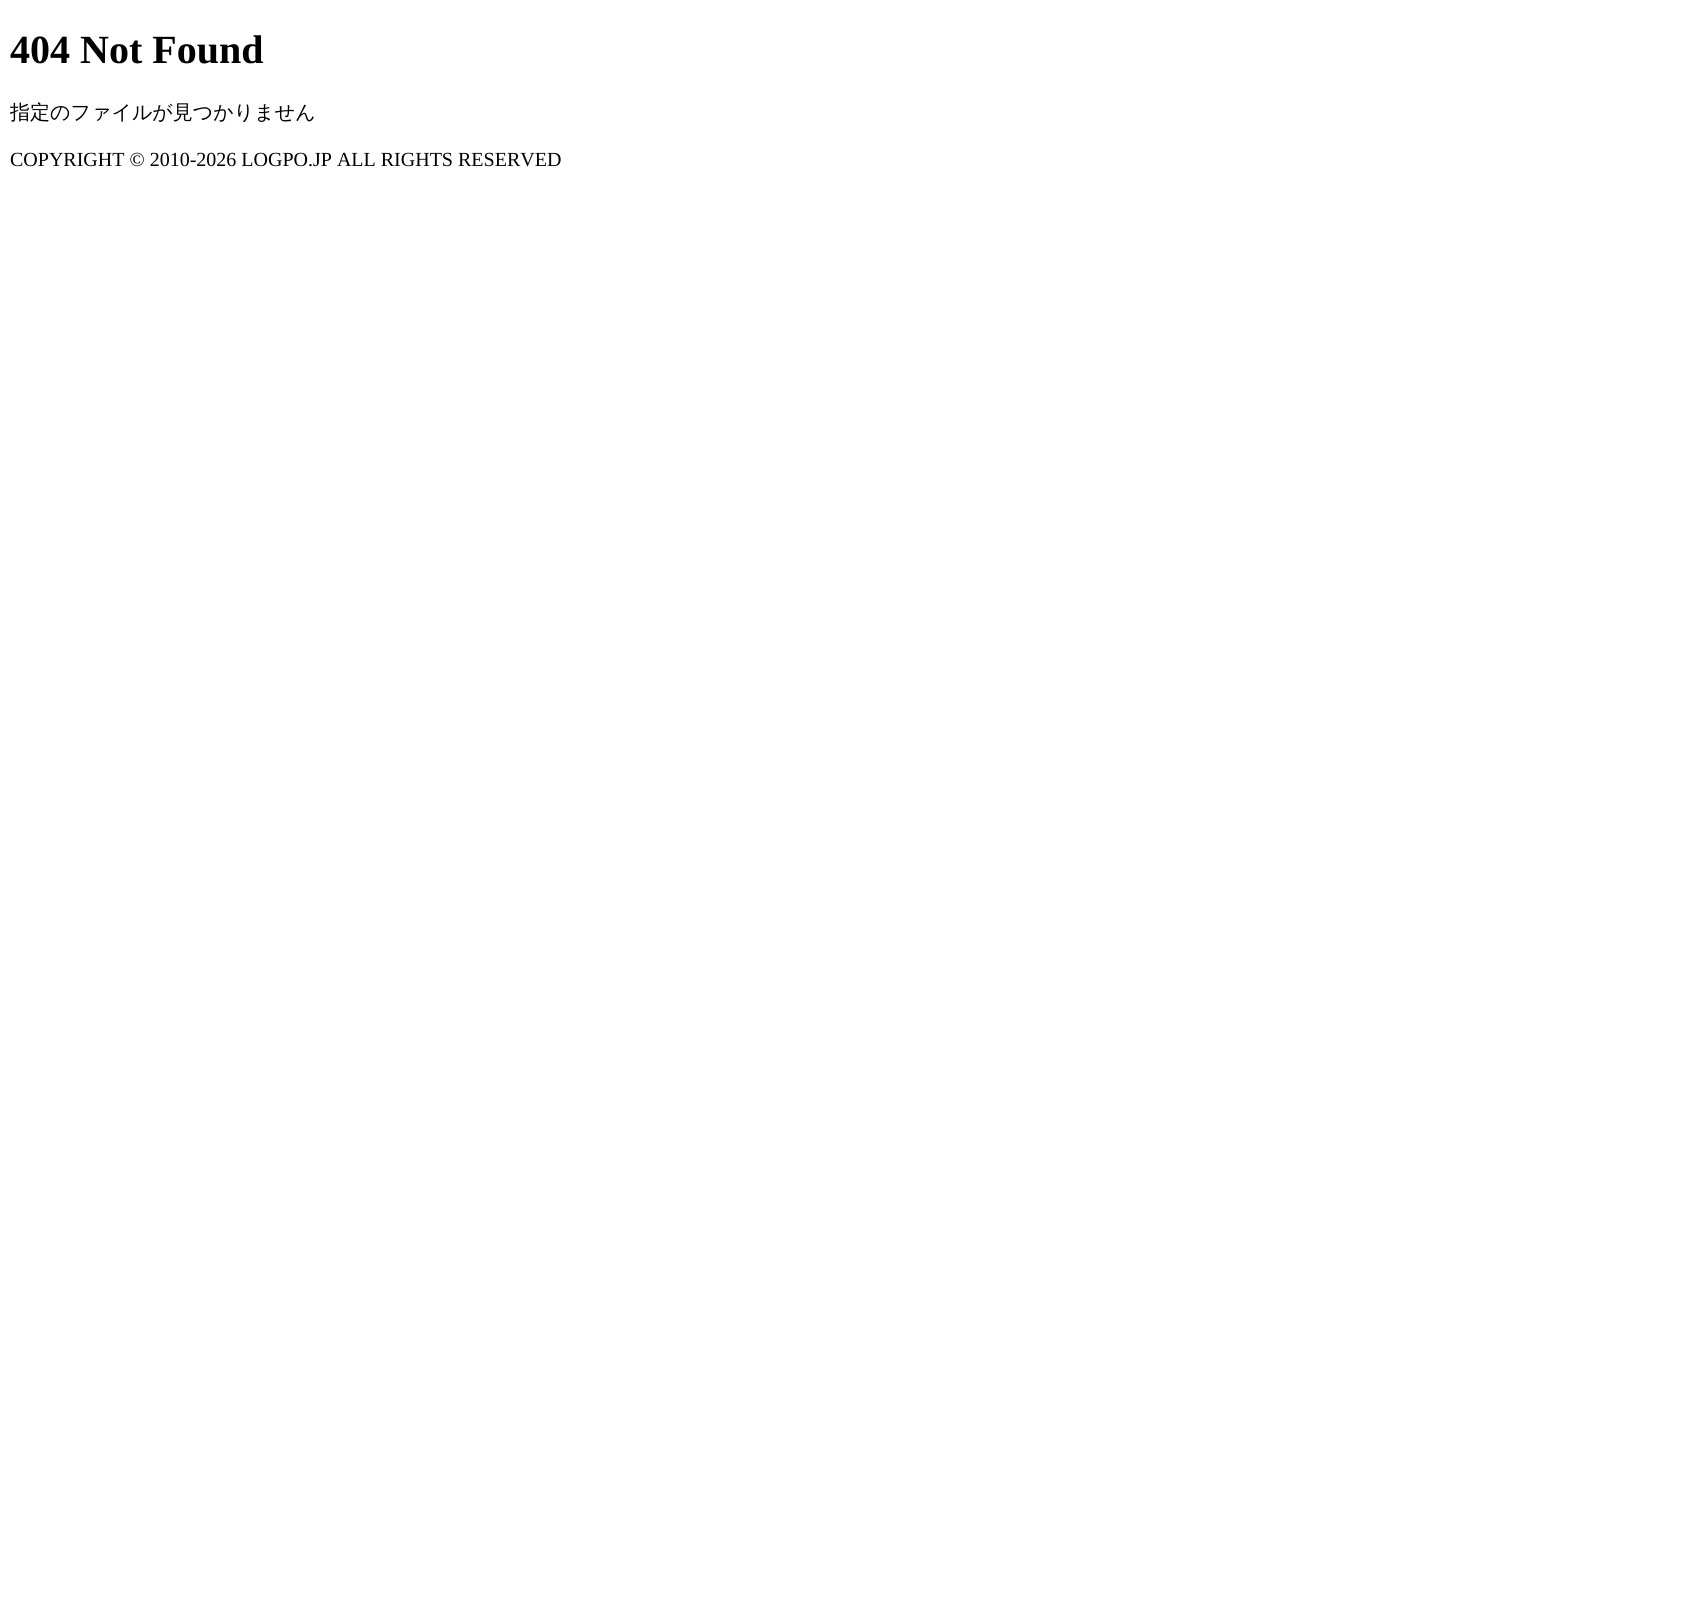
import math
import cairocffi as cairo

surface = cairo.ImageSurface(cairo.FORMAT_RGB24, 1689, 1609)
cr = cairo.Context(surface)
options = cairo.FontOptions()
options.set_hint_metrics(cairo.HINT_METRICS_OFF)
options.set_hint_style(cairo.HINT_STYLE_NONE)
cr.set_font_options(options)
cr.set_miter_limit(4)


def use_color(code):
    cr.set_source_rgb(*(v / 255 for v in bytes.fromhex(code[-6:])))


use_color("#ffffff")
cr.paint()
cr.select_font_face("Liberation Serif", cairo.FONT_SLANT_NORMAL, cairo.FONT_WEIGHT_BOLD)
cr.set_font_size(40)
use_color("#000000")
cr.move_to(10, 63)
cr.show_text("404 Not Found")
cr.select_font_face("WenQuanYi Zen Hei Medium")
cr.set_font_size(20)
cr.move_to(10, 119)
cr.show_text("指定のファイルが見つかりません")
cr.select_font_face("Liberation Serif")
cr.move_to(10, 166)
cr.show_text("COPYRIGHT © 2010-2026 LOGPO.JP ALL RIGHTS RESERVED")
surface.write_to_png("result.png")
